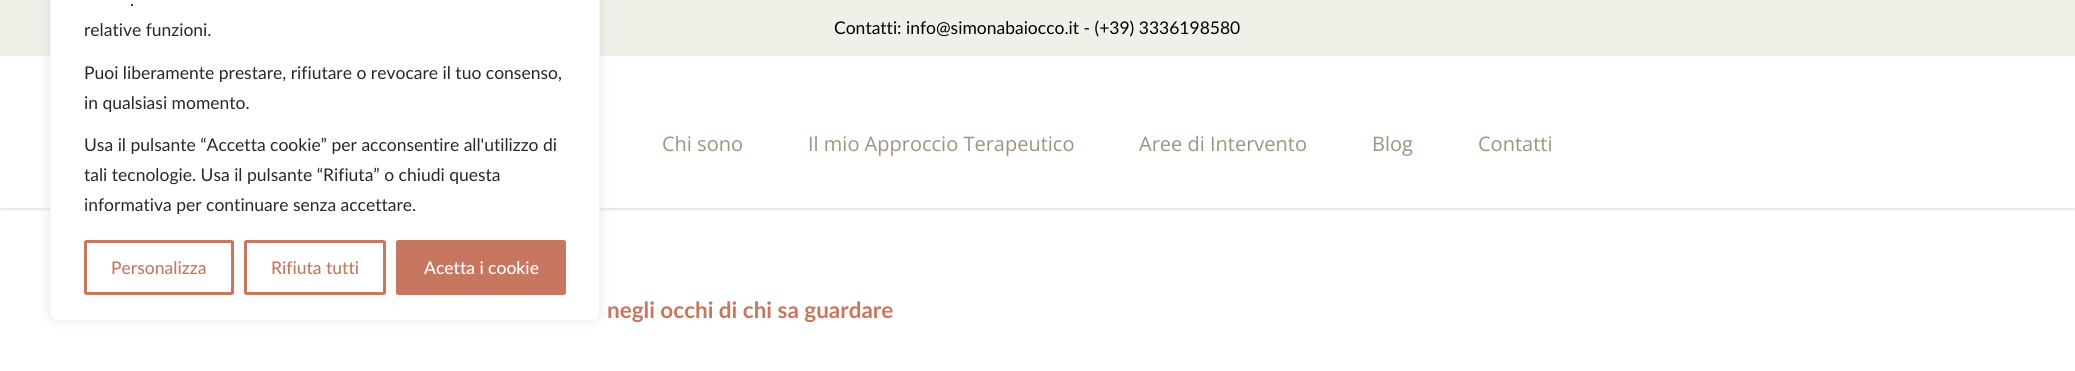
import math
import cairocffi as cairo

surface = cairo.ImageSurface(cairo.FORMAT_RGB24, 2075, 371)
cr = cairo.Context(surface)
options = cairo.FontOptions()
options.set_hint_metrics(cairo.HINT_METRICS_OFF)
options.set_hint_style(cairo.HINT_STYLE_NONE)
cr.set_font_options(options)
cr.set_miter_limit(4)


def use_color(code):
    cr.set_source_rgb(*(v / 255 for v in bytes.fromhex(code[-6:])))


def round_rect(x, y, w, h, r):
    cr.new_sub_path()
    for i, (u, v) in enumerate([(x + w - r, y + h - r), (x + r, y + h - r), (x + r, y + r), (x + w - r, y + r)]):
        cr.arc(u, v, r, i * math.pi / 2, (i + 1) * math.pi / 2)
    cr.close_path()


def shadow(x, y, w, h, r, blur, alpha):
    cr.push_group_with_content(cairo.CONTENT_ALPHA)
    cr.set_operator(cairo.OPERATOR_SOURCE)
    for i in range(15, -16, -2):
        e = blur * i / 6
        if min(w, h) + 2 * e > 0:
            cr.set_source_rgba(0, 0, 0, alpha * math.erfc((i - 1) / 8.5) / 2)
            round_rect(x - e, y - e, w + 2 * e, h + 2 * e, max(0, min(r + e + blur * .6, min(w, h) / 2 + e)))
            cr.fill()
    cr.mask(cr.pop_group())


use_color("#ededed")
cr.paint()
use_color("#f0efe8")
cr.rectangle(0, 0, 2075, 55)
cr.fill()
use_color("#ffffff")
cr.rectangle(0, 208, 2075, 163)
cr.fill()
use_color("#000000")
shadow(0, 59, 2075, 151, 0, 1, 0.1)
use_color("#ffffff")
cr.rectangle(0, 56, 2075, 152)
cr.fill()
use_color("#acabab")
shadow(50, -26, 550, 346, 8, 6, 0.3)
use_color("#ffffff")
round_rect(50.5, -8.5, 549, 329, 7.5)
cr.fill_preserve()
use_color("#f4f4f4")
cr.set_line_width(1)
cr.stroke()
cr.select_font_face("Lato")
cr.set_font_size(17.5)
use_color("#292828")
cr.move_to(130, 6)
cr.show_text(".")
cr.move_to(84, 36)
cr.show_text("relative funzioni.")
cr.move_to(84, 79)
cr.show_text("Puoi liberamente prestare, rifiutare o revocare il tuo consenso,")
cr.move_to(84, 109)
cr.show_text("in qualsiasi momento.")
cr.move_to(84, 151)
cr.show_text("Usa il pulsante “Accetta cookie” per acconsentire all'utilizzo di")
cr.move_to(84, 181)
cr.show_text("tali tecnologie. Usa il pulsante “Rifiuta” o chiudi questa")
cr.move_to(84, 211)
cr.show_text("informativa per continuare senza accettare.")
round_rect(85.5, 241.5, 147, 52, 1)
use_color("#c7775f")
cr.set_line_width(3)
cr.stroke()
cr.select_font_face("Lato Medium")
cr.move_to(111, 274)
cr.show_text("Personalizza")
round_rect(245.5, 241.5, 139, 52, 1)
cr.stroke()
cr.move_to(271, 274)
cr.show_text("Rifiuta tutti")
round_rect(397.5, 241.5, 167, 52, 1)
cr.fill_preserve()
cr.stroke()
use_color("#ffffff")
cr.move_to(424, 274)
cr.show_text("Acetta i cookie")
cr.select_font_face("Lato")
use_color("#000000")
cr.move_to(834, 34)
cr.show_text("Contatti: info@simonabaiocco.it - (+39) 3336198580")
cr.select_font_face("Open Sans")
cr.set_font_size(20)
use_color("#9e937f")
cr.move_to(662, 151)
cr.show_text("Chi sono")
cr.move_to(808, 151)
cr.show_text("Il mio Approccio Terapeutico")
cr.move_to(1139, 151)
cr.show_text("Aree di Intervento")
cr.move_to(1372, 151)
cr.show_text("Blog")
cr.move_to(1478, 151)
cr.show_text("Contatti")
cr.select_font_face("Lato", cairo.FONT_SLANT_NORMAL, cairo.FONT_WEIGHT_BOLD)
cr.set_font_size(22.5)
use_color("#c7775f")
cr.move_to(607, 318)
cr.show_text("negli occhi di chi sa guardare")
surface.write_to_png("result.png")
